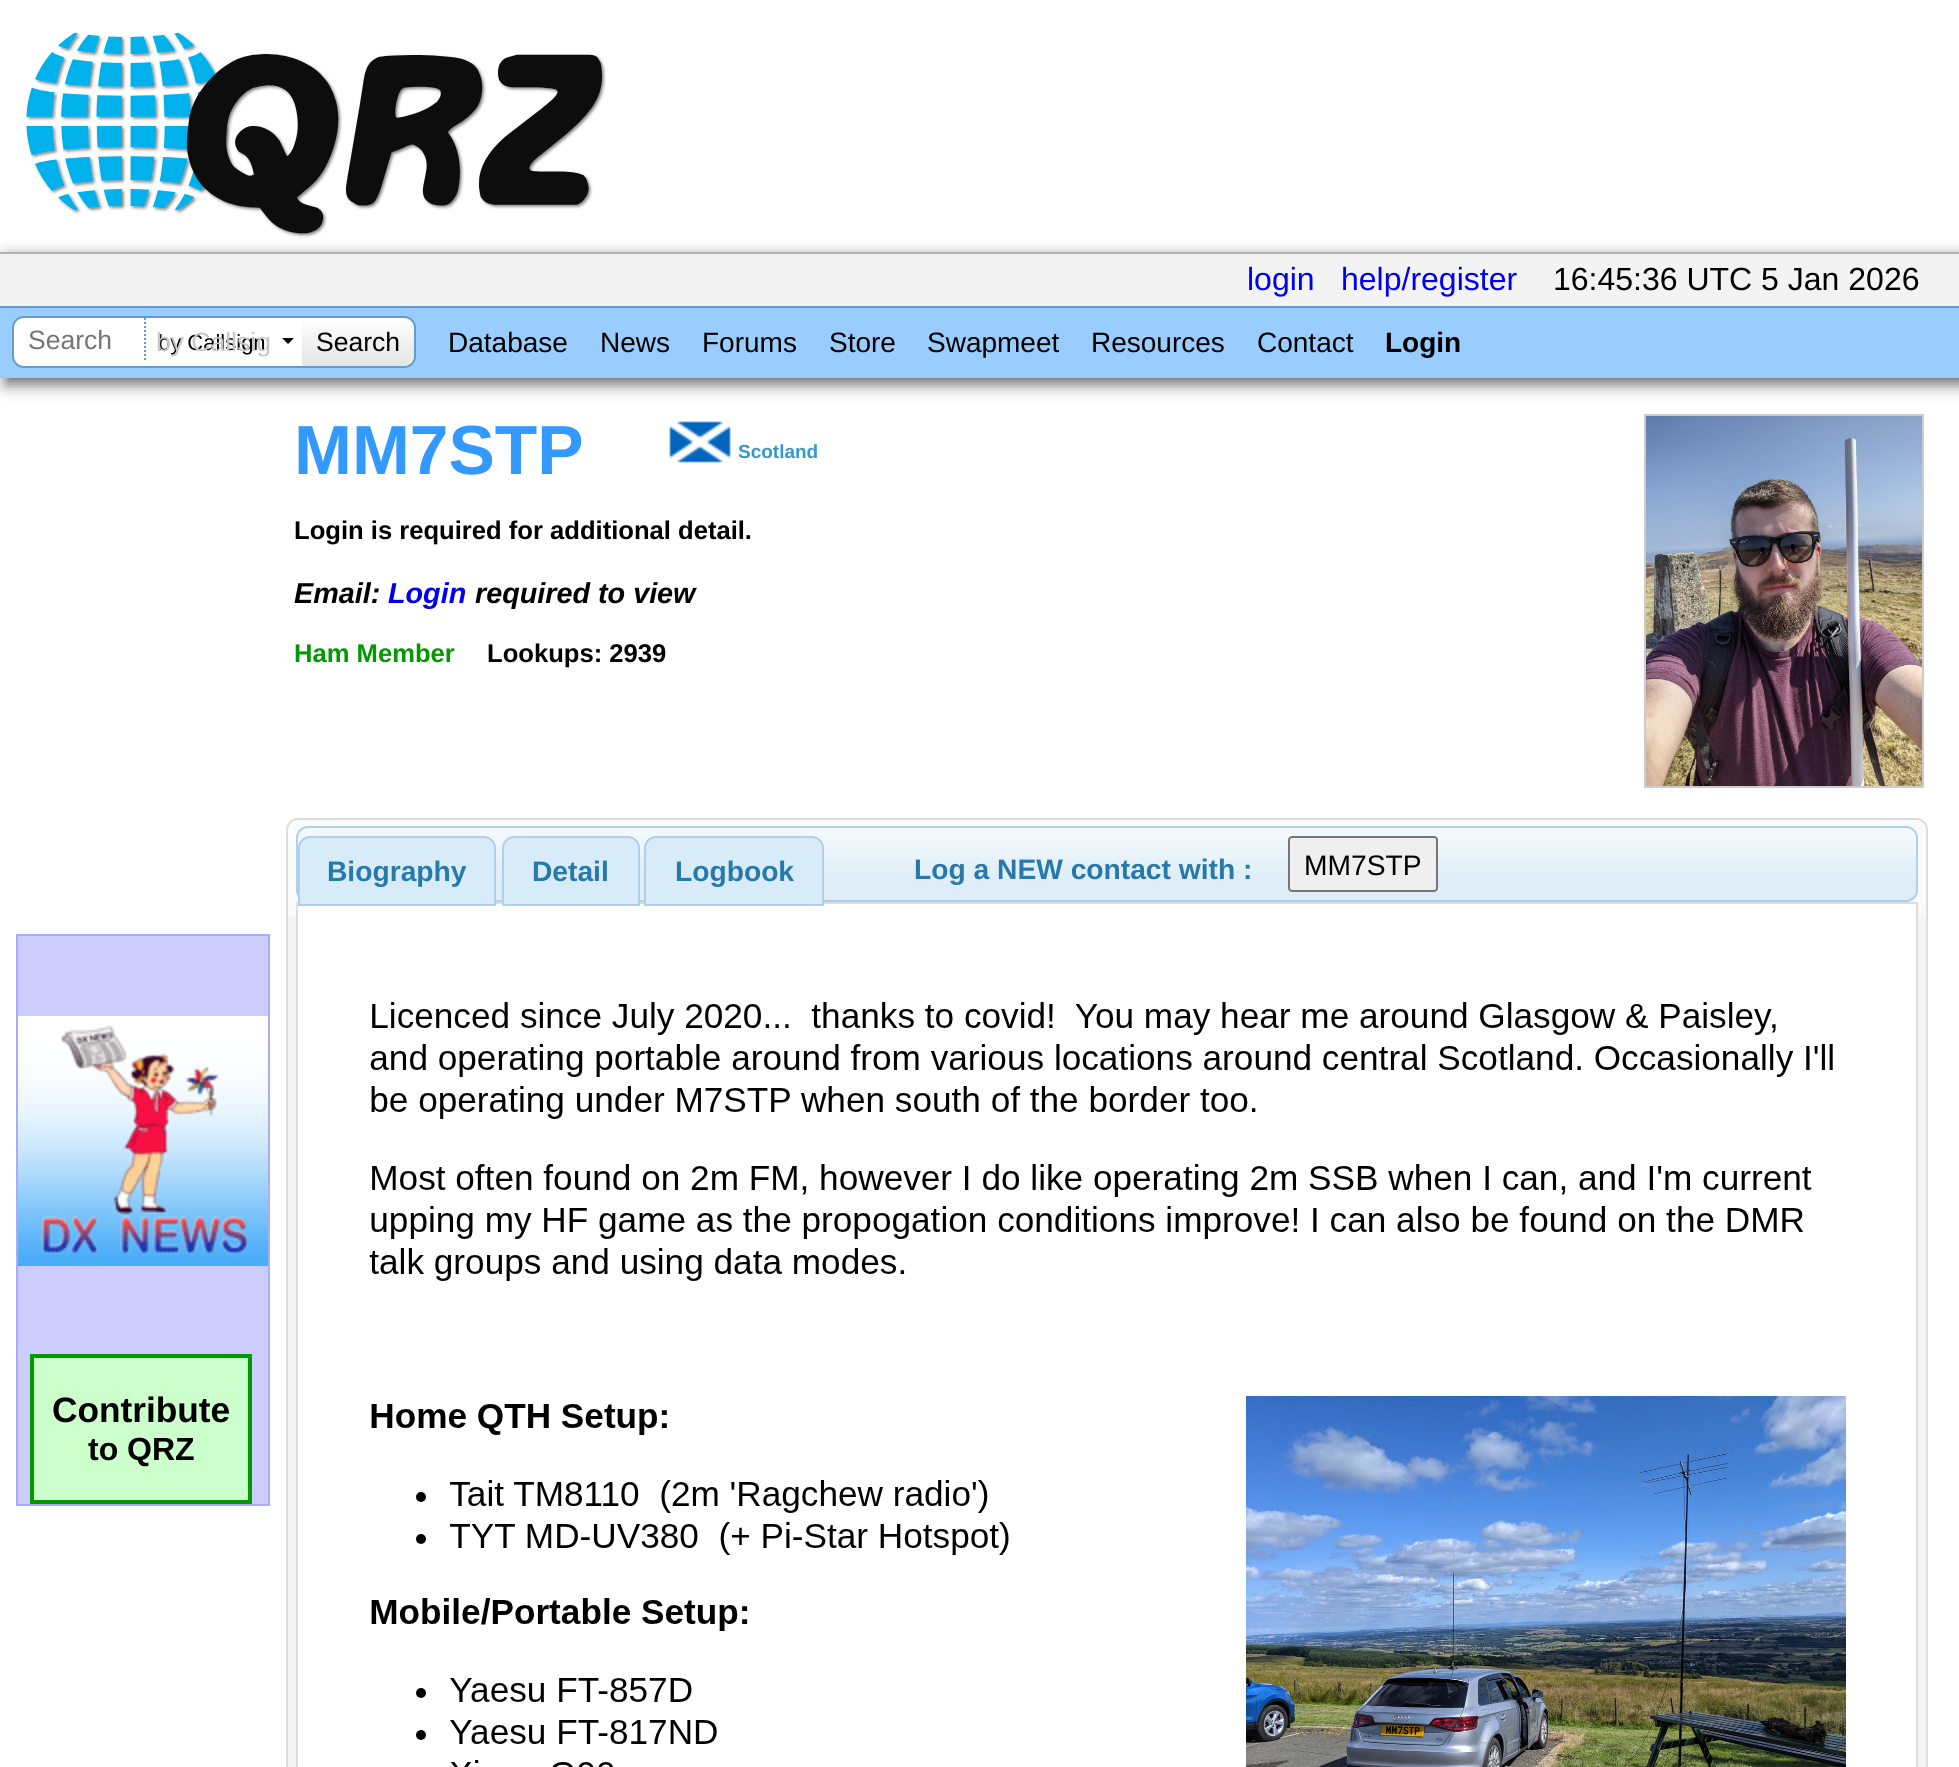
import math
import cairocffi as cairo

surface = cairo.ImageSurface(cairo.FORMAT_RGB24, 1959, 1767)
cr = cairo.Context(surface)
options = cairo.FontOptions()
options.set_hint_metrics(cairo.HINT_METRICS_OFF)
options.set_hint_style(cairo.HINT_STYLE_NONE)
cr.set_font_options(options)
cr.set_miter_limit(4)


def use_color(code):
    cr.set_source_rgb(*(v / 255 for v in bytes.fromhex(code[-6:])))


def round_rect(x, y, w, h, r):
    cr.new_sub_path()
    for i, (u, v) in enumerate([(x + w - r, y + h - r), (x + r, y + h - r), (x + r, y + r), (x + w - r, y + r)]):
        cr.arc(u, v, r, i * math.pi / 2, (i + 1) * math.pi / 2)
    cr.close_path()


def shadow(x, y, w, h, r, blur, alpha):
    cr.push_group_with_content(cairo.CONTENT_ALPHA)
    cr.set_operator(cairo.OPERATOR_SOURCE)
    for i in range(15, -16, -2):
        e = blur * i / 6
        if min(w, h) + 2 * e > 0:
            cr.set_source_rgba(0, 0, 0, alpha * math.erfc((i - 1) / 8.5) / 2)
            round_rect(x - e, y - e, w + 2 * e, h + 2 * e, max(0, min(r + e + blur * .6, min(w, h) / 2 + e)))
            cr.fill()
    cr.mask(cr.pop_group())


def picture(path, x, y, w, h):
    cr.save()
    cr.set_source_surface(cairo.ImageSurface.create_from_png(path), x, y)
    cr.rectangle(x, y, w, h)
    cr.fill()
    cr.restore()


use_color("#ffffff")
cr.paint()
use_color("#666666")
shadow(6, 258, 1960, 126, 0, 8, 1)
picture("img1.png", 26, 32, 580, 206)
use_color("#f3f3f3")
cr.rectangle(0, 254, 1959, 52)
cr.fill()
use_color("#b3b3b3")
cr.rectangle(0, 252, 1959, 2)
cr.fill()
cr.select_font_face("Liberation Sans")
cr.set_font_size(32)
use_color("#0000ee")
cr.move_to(1247, 290)
cr.show_text("login")
cr.move_to(1341, 290)
cr.show_text("help/register")
use_color("#000000")
cr.move_to(1553, 290)
cr.show_text("16:45:36 UTC 5 Jan 2026")
use_color("#99ccff")
cr.rectangle(0, 308, 1959, 70)
cr.fill()
use_color("#6699cc")
cr.rectangle(0, 306, 1959, 2)
cr.fill()
use_color("#ffffff")
round_rect(13, 317, 402, 50, 11)
cr.fill_preserve()
use_color("#6699cc")
cr.stroke()
cr.new_path()
cr.move_to(145, 318)
cr.line_to(145, 362)
cr.set_dash([2, 2])
cr.stroke()
cr.set_font_size(26.5)
use_color("#757575")
cr.move_to(28, 349)
cr.show_text("Search")
cr.set_font_size(22)
use_color("#000000")
cr.move_to(158, 350)
cr.show_text("by Callsign")
cr.set_font_size(26.5)
use_color("#c7c7c7")
cr.move_to(156, 351)
cr.show_text("by Callsig")
use_color("#000000")
cr.new_path()
cr.move_to(282, 338)
cr.line_to(294, 338)
cr.line_to(288, 344)
cr.close_path()
cr.fill()
gradient = cairo.LinearGradient(358, 318, 358, 366)
gradient.add_color_stop_rgba(0, 1, 1, 1, 1)
gradient.add_color_stop_rgba(1, 0.898, 0.898, 0.898, 1)
cr.set_source(gradient)
cr.new_path()
cr.move_to(302, 318)
cr.line_to(402, 318)
cr.curve_to(408.5, 318, 414, 323.5, 414, 330)
cr.line_to(414, 354)
cr.curve_to(414, 360.5, 408.5, 366, 402, 366)
cr.line_to(302, 366)
cr.close_path()
cr.fill()
use_color("#000000")
cr.move_to(316, 351)
cr.show_text("Search")
cr.set_font_size(28)
cr.move_to(448, 352)
cr.show_text("Database")
cr.move_to(600, 352)
cr.show_text("News")
cr.move_to(702, 352)
cr.show_text("Forums")
cr.move_to(829, 352)
cr.show_text("Store")
cr.move_to(927, 352)
cr.show_text("Swapmeet")
cr.move_to(1091, 352)
cr.show_text("Resources")
cr.move_to(1257, 352)
cr.show_text("Contact")
cr.select_font_face("Liberation Sans", cairo.FONT_SLANT_NORMAL, cairo.FONT_WEIGHT_BOLD)
cr.move_to(1385, 352)
cr.show_text("Login")
cr.set_font_size(69.5)
use_color("#3399ff")
cr.move_to(294, 474)
cr.show_text("MM7STP")
picture("img2.png", 669, 421, 62, 42)
cr.set_font_size(19)
use_color("#3399cc")
cr.move_to(738, 458)
cr.show_text("Scotland")
cr.set_font_size(25.6)
use_color("#000000")
cr.move_to(294, 539)
cr.show_text("Login is required for additional detail.")
cr.select_font_face("Liberation Sans", cairo.FONT_SLANT_ITALIC, cairo.FONT_WEIGHT_BOLD)
cr.set_font_size(28.75)
cr.move_to(294, 603)
cr.show_text("Email:")
use_color("#0000ee")
cr.move_to(388, 603)
cr.show_text("Login")
use_color("#000000")
cr.move_to(475, 603)
cr.show_text("required to view")
cr.select_font_face("Liberation Sans", cairo.FONT_SLANT_NORMAL, cairo.FONT_WEIGHT_BOLD)
cr.set_font_size(25.6)
use_color("#009900")
cr.move_to(294, 662)
cr.show_text("Ham Member")
use_color("#000000")
cr.move_to(487, 662)
cr.show_text("Lookups: 2939")
cr.rectangle(1645, 415, 278, 372)
use_color("#cccccc")
cr.set_dash([])
cr.stroke()
picture("img3.png", 1646, 416, 276, 370)
use_color("#f2f5f7")
round_rect(286, 818, 1642, 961, 12)
cr.fill()
picture("img4.png", 286, 820, 1642, 97)
round_rect(287, 819, 1640, 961, 11)
use_color("#dddddd")
cr.stroke()
picture("img5.png", 296, 826, 1622, 76)
round_rect(297, 827, 1620, 74, 11)
use_color("#aed0ea")
cr.stroke()
use_color("#ffffff")
cr.rectangle(297, 903, 1620, 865)
cr.fill_preserve()
use_color("#dddddd")
cr.stroke()
use_color("#d7ebf9")
cr.new_path()
cr.move_to(310, 837)
cr.line_to(484, 837)
cr.curve_to(490, 837, 495, 842, 495, 848)
cr.line_to(495, 905)
cr.line_to(299, 905)
cr.line_to(299, 848)
cr.curve_to(299, 842, 304, 837, 310, 837)
cr.close_path()
cr.fill_preserve()
use_color("#aed0ea")
cr.stroke()
cr.set_font_size(28.2)
use_color("#2779aa")
cr.move_to(327, 881)
cr.show_text("Biography")
use_color("#d7ebf9")
cr.new_path()
cr.move_to(514, 837)
cr.line_to(628, 837)
cr.curve_to(634, 837, 639, 842, 639, 848)
cr.line_to(639, 905)
cr.line_to(503, 905)
cr.line_to(503, 848)
cr.curve_to(503, 842, 508, 837, 514, 837)
cr.close_path()
cr.fill_preserve()
use_color("#aed0ea")
cr.stroke()
use_color("#2779aa")
cr.move_to(532, 881)
cr.show_text("Detail")
use_color("#d7ebf9")
cr.new_path()
cr.move_to(656, 837)
cr.line_to(812, 837)
cr.curve_to(818, 837, 823, 842, 823, 848)
cr.line_to(823, 905)
cr.line_to(645, 905)
cr.line_to(645, 848)
cr.curve_to(645, 842, 650, 837, 656, 837)
cr.close_path()
cr.fill_preserve()
use_color("#aed0ea")
cr.stroke()
use_color("#2779aa")
cr.move_to(675, 881)
cr.show_text("Logbook")
cr.move_to(914, 879)
cr.show_text("Log a NEW contact with :")
use_color("#efefef")
round_rect(1289, 837, 148, 54, 3)
cr.fill_preserve()
use_color("#767676")
cr.stroke()
cr.select_font_face("Liberation Sans")
use_color("#000000")
cr.move_to(1304, 875)
cr.show_text("MM7STP")
picture("img6.png", 369, 1002, 1477, 765)
use_color("#ccccff")
cr.rectangle(17, 935, 252, 570)
cr.fill_preserve()
use_color("#aaaaff")
cr.stroke()
picture("img7.png", 18, 1016, 250, 250)
use_color("#ccffcc")
cr.rectangle(32, 1356, 218, 146)
cr.fill_preserve()
use_color("#009900")
cr.set_line_width(4)
cr.stroke()
cr.select_font_face("Liberation Sans", cairo.FONT_SLANT_NORMAL, cairo.FONT_WEIGHT_BOLD)
cr.set_font_size(35.25)
use_color("#000000")
cr.move_to(52, 1422)
cr.show_text("Contribute")
cr.set_font_size(32)
cr.move_to(88, 1460)
cr.show_text("to QRZ")
surface.write_to_png("result.png")
